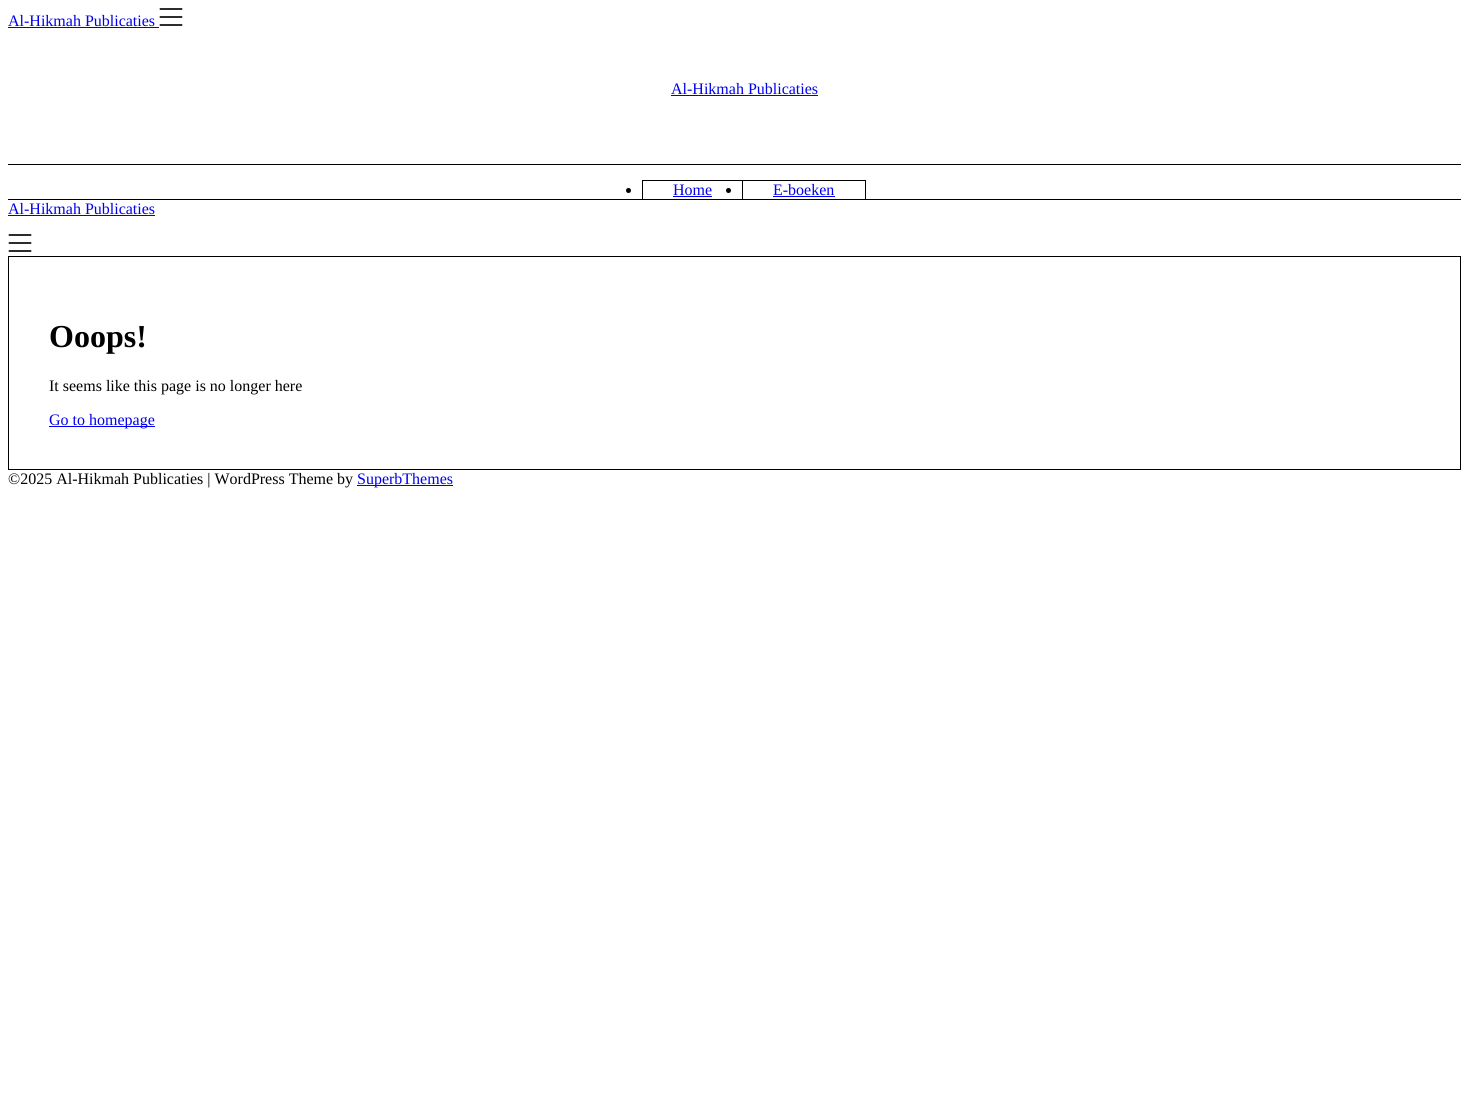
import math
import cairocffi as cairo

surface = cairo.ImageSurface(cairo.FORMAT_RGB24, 1469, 1120)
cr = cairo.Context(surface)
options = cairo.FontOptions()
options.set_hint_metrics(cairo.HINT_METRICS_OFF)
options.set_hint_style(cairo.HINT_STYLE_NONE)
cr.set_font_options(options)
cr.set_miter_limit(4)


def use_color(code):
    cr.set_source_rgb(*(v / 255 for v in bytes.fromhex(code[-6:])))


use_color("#ffffff")
cr.paint()
cr.select_font_face("Liberation Serif")
cr.set_font_size(16)
use_color("#0000ee")
cr.move_to(8, 26)
cr.show_text("Al-Hikmah Publicaties")
cr.rectangle(8, 27, 151, 1)
cr.fill()
cr.new_path()
cr.move_to(160.5, 9)
cr.line_to(181.5, 9)
cr.move_to(160.5, 17)
cr.line_to(181.5, 17)
cr.move_to(160.5, 25)
cr.line_to(181.5, 25)
use_color("#2d2d2d")
cr.set_line_cap(cairo.LINE_CAP_ROUND)
cr.set_line_join(cairo.LINE_JOIN_ROUND)
cr.stroke()
use_color("#000000")
cr.rectangle(8, 199, 1453, 1)
cr.fill()
use_color("#0000ee")
cr.move_to(671, 94)
cr.show_text("Al-Hikmah Publicaties")
cr.rectangle(671, 95, 147, 1)
cr.fill()
use_color("#000000")
cr.rectangle(8, 164, 1453, 1)
cr.fill()
cr.rectangle(642.5, 180.5, 100, 19)
cr.set_line_width(1)
cr.set_line_cap(cairo.LINE_CAP_BUTT)
cr.set_line_join(cairo.LINE_JOIN_MITER)
cr.stroke()
cr.arc(628.5, 190.5, 2.5, 0, 2 * math.pi)
cr.fill()
use_color("#0000ee")
cr.move_to(673, 195)
cr.show_text("Home")
cr.rectangle(673, 196, 39, 1)
cr.fill()
cr.rectangle(742.5, 180.5, 123, 19)
use_color("#000000")
cr.stroke()
cr.arc(728.5, 190.5, 2.5, 0, 2 * math.pi)
cr.fill()
use_color("#0000ee")
cr.move_to(773, 195)
cr.show_text("E-boeken")
cr.rectangle(773, 196, 62, 1)
cr.fill()
cr.move_to(8, 214)
cr.show_text("Al-Hikmah Publicaties")
cr.rectangle(8, 215, 147, 1)
cr.fill()
cr.new_path()
cr.move_to(9.5, 235)
cr.line_to(30.5, 235)
cr.move_to(9.5, 243)
cr.line_to(30.5, 243)
cr.move_to(9.5, 251)
cr.line_to(30.5, 251)
use_color("#2d2d2d")
cr.set_line_width(2)
cr.set_line_cap(cairo.LINE_CAP_ROUND)
cr.set_line_join(cairo.LINE_JOIN_ROUND)
cr.stroke()
cr.rectangle(8.5, 256.5, 1452, 213)
use_color("#000000")
cr.set_line_width(1)
cr.set_line_cap(cairo.LINE_CAP_BUTT)
cr.set_line_join(cairo.LINE_JOIN_MITER)
cr.stroke()
cr.select_font_face("Liberation Serif", cairo.FONT_SLANT_NORMAL, cairo.FONT_WEIGHT_BOLD)
cr.set_font_size(32)
cr.move_to(49, 347)
cr.show_text("Ooops!")
cr.select_font_face("Liberation Serif")
cr.set_font_size(16)
cr.move_to(49, 391)
cr.show_text("It seems like this page is no longer here")
use_color("#0000ee")
cr.rectangle(49, 426, 106, 1)
cr.fill()
cr.move_to(49, 425)
cr.show_text("Go to homepage")
use_color("#000000")
cr.move_to(8, 484)
cr.show_text("©2025 Al-Hikmah Publicaties | WordPress Theme by")
use_color("#0000ee")
cr.rectangle(357, 485, 96, 1)
cr.fill()
cr.move_to(357, 484)
cr.show_text("SuperbThemes")
surface.write_to_png("result.png")
